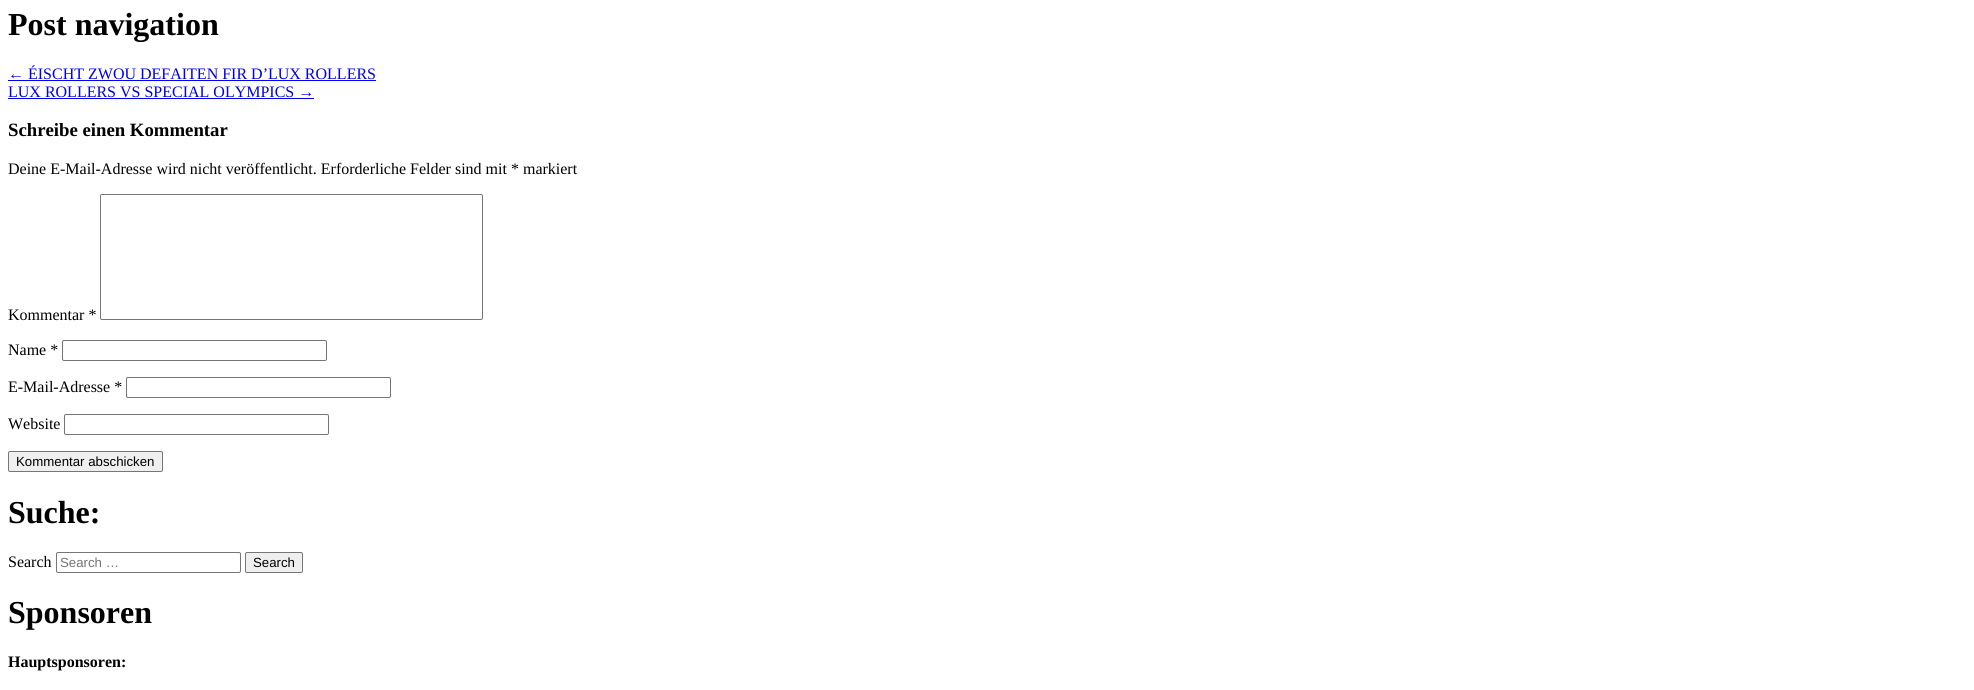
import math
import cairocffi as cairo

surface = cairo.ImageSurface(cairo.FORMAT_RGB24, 1974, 690)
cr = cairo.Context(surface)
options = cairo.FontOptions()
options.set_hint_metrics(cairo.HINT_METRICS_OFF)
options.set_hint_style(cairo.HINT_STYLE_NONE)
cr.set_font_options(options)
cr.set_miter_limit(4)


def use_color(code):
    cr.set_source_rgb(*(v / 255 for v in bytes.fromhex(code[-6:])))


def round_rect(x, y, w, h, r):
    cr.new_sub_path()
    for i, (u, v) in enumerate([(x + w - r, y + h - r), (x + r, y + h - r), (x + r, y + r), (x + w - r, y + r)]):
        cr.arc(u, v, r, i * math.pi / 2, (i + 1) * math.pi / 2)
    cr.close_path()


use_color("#ffffff")
cr.paint()
cr.select_font_face("Liberation Serif", cairo.FONT_SLANT_NORMAL, cairo.FONT_WEIGHT_BOLD)
cr.set_font_size(32)
use_color("#000000")
cr.move_to(8, 35)
cr.show_text("Post navigation")
cr.select_font_face("Liberation Serif")
cr.set_font_size(16)
use_color("#0000ee")
cr.move_to(8, 79)
cr.show_text("← ÉISCHT ZWOU DEFAITEN FIR D’LUX ROLLERS")
cr.rectangle(8, 80, 368, 1)
cr.fill()
cr.move_to(8, 97)
cr.show_text("LUX ROLLERS VS SPECIAL OLYMPICS →")
cr.rectangle(8, 98, 306, 1)
cr.fill()
cr.select_font_face("Liberation Serif", cairo.FONT_SLANT_NORMAL, cairo.FONT_WEIGHT_BOLD)
cr.set_font_size(18.75)
use_color("#000000")
cr.move_to(8, 136)
cr.show_text("Schreibe einen Kommentar")
cr.select_font_face("Liberation Serif")
cr.set_font_size(16)
cr.move_to(8, 174)
cr.show_text("Deine E-Mail-Adresse wird nicht veröffentlicht. Erforderliche Felder sind mit * markiert")
cr.move_to(8, 320)
cr.show_text("Kommentar *")
round_rect(100.5, 194.5, 382, 125, 1.5)
use_color("#767676")
cr.set_line_width(1)
cr.stroke()
use_color("#000000")
cr.move_to(8, 355)
cr.show_text("Name *")
round_rect(62.5, 340.5, 264, 20, 1.5)
use_color("#767676")
cr.stroke()
use_color("#000000")
cr.move_to(8, 392)
cr.show_text("E-Mail-Adresse *")
round_rect(126.5, 377.5, 264, 20, 1.5)
use_color("#767676")
cr.stroke()
use_color("#000000")
cr.move_to(8, 429)
cr.show_text("Website")
round_rect(64.5, 414.5, 264, 20, 1.5)
use_color("#767676")
cr.stroke()
use_color("#efefef")
round_rect(8.5, 451.5, 154, 20, 1.5)
cr.fill_preserve()
use_color("#767676")
cr.stroke()
cr.select_font_face("Liberation Sans")
cr.set_font_size(13.25)
use_color("#000000")
cr.move_to(16, 466)
cr.show_text("Kommentar abschicken")
cr.select_font_face("Liberation Serif", cairo.FONT_SLANT_NORMAL, cairo.FONT_WEIGHT_BOLD)
cr.set_font_size(32)
cr.move_to(8, 523)
cr.show_text("Suche:")
cr.select_font_face("Liberation Serif")
cr.set_font_size(16)
cr.move_to(8, 567)
cr.show_text("Search")
round_rect(56.5, 552.5, 184, 20, 1.5)
use_color("#767676")
cr.stroke()
cr.select_font_face("Liberation Sans")
cr.set_font_size(13.25)
use_color("#757575")
cr.move_to(60, 567)
cr.show_text("Search …")
use_color("#efefef")
round_rect(245.5, 552.5, 57, 20, 1.5)
cr.fill_preserve()
use_color("#767676")
cr.stroke()
use_color("#000000")
cr.move_to(253, 567)
cr.show_text("Search")
cr.select_font_face("Liberation Serif", cairo.FONT_SLANT_NORMAL, cairo.FONT_WEIGHT_BOLD)
cr.set_font_size(32)
cr.move_to(8, 623)
cr.show_text("Sponsoren")
cr.set_font_size(16)
cr.move_to(8, 667)
cr.show_text("Hauptsponsoren:")
surface.write_to_png("result.png")
